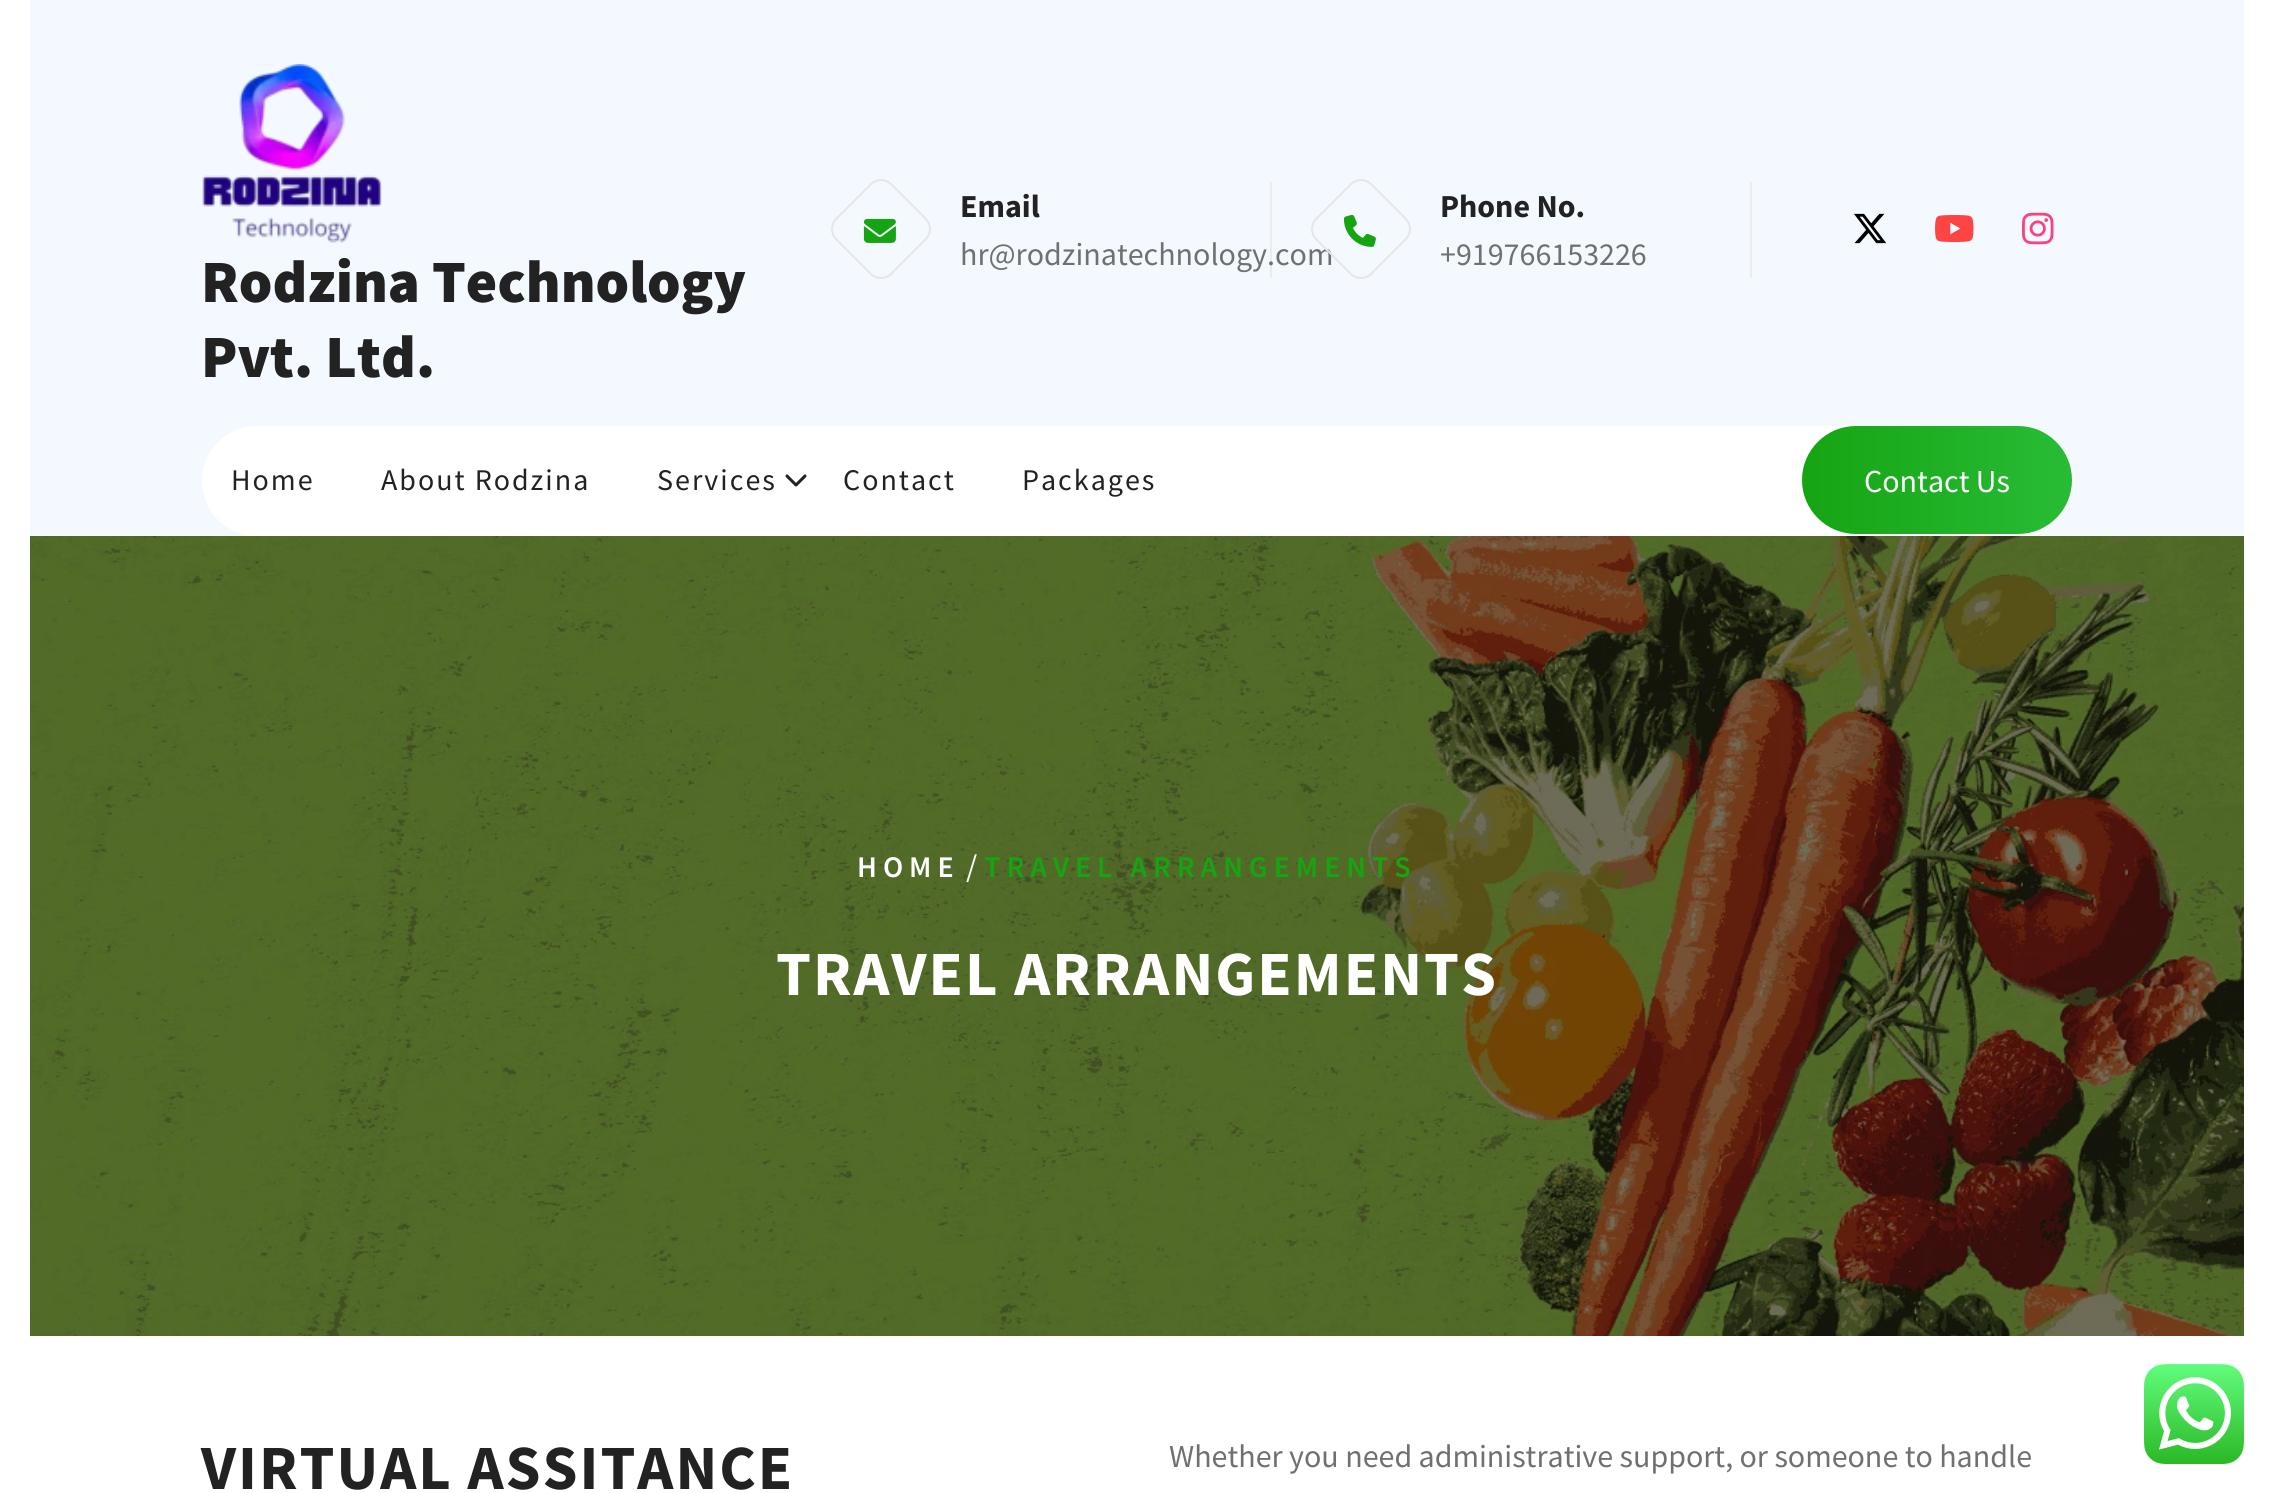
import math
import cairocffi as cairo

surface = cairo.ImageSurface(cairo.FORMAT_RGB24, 2273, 1493)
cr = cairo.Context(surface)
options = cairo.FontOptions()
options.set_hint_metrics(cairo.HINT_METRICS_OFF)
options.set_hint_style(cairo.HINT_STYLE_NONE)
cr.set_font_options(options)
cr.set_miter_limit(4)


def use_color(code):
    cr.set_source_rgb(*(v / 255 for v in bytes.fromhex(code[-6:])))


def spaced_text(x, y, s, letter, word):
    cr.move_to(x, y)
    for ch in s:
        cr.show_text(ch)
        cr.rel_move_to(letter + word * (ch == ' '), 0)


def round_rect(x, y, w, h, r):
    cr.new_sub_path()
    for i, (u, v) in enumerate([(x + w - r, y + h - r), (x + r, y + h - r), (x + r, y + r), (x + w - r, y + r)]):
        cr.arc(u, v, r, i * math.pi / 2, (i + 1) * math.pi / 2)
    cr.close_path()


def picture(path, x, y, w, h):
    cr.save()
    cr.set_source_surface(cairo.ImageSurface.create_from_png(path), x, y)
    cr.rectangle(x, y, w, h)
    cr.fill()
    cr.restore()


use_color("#ffffff")
cr.paint()
use_color("#f4f9ff")
cr.rectangle(30, 0, 2214, 536)
cr.fill()
use_color("#ececec")
cr.rectangle(1270, 182, 2, 96)
cr.fill()
cr.new_path()
cr.move_to(891.5, 184.5)
cr.line_to(925.5, 218.5)
cr.curve_to(931.5, 224.5, 931.5, 233.5, 925.5, 239.5)
cr.line_to(891.5, 273.5)
cr.curve_to(885.5, 279.5, 876, 279.5, 870.5, 273.5)
cr.line_to(836.5, 239.5)
cr.curve_to(830.5, 233.5, 830.5, 224.5, 836.5, 218.5)
cr.line_to(870.5, 184.5)
cr.curve_to(876, 178.5, 885.5, 178.5, 891.5, 184.5)
cr.close_path()
use_color("#e6e6e7")
cr.stroke()
picture("img1.png", 863, 218, 33, 25)
cr.select_font_face("Source Sans Pro", cairo.FONT_SLANT_NORMAL, cairo.FONT_WEIGHT_BOLD)
cr.set_font_size(32)
use_color("#222222")
cr.move_to(960, 217)
cr.show_text("Email")
cr.select_font_face("Source Sans Pro")
use_color("#707070")
cr.move_to(960, 265)
cr.show_text("hr@rodzinatechnology.com")
use_color("#ececec")
cr.rectangle(1750, 182, 2, 96)
cr.fill()
cr.new_path()
cr.move_to(1371.5, 184.5)
cr.line_to(1405.5, 218.5)
cr.curve_to(1411.5, 224.5, 1411.5, 233.5, 1405.5, 239.5)
cr.line_to(1371.5, 273.5)
cr.curve_to(1365.5, 279.5, 1356, 279.5, 1350.5, 273.5)
cr.line_to(1316.5, 239.5)
cr.curve_to(1310.5, 233.5, 1310.5, 224.5, 1316.5, 218.5)
cr.line_to(1350.5, 184.5)
cr.curve_to(1356, 178.5, 1365.5, 178.5, 1371.5, 184.5)
cr.close_path()
use_color("#e6e6e7")
cr.stroke()
picture("img2.png", 1343, 214, 33, 33)
cr.select_font_face("Source Sans Pro", cairo.FONT_SLANT_NORMAL, cairo.FONT_WEIGHT_BOLD)
use_color("#222222")
cr.move_to(1440, 217)
cr.show_text("Phone No.")
cr.select_font_face("Source Sans Pro")
use_color("#707070")
cr.move_to(1440, 265)
cr.show_text("+919766153226")
picture("img3.png", 1854, 213, 33, 31)
picture("img4.png", 1935, 215, 39, 27)
picture("img5.png", 2022, 212, 32, 33)
picture("img6.png", 202, 64, 180, 179)
cr.select_font_face("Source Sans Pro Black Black")
cr.set_font_size(60)
use_color("#222222")
cr.move_to(201, 302)
cr.show_text("Rodzina Technology")
cr.move_to(201, 377)
cr.show_text("Pvt. Ltd.")
use_color("#ffffff")
round_rect(202, 426, 1872, 110, 55)
cr.fill()
cr.select_font_face("Source Sans Pro")
cr.set_font_size(30)
use_color("#222222")
spaced_text(231, 490, "Home", 2, 0)
spaced_text(381, 490, "About Rodzina", 2, 0)
spaced_text(657, 490, "Services", 2, 0)
picture("img7.png", 785, 474, 22, 13)
spaced_text(843, 490, "Contact", 2, 0)
spaced_text(1022, 490, "Packages", 2, 0)
gradient = cairo.LinearGradient(1802, 480, 2072, 480)
gradient.add_color_stop_rgba(0, 0.086, 0.643, 0.071, 1)
gradient.add_color_stop_rgba(1, 0.157, 0.737, 0.212, 1)
cr.set_source(gradient)
round_rect(1802, 426, 270, 108, 54)
cr.fill()
cr.set_font_size(32)
use_color("#ffffff")
cr.move_to(1864, 492)
cr.show_text("Contact Us")
use_color("#000000")
cr.rectangle(30, 536, 2214, 800)
cr.fill()
picture("img8.png", 30, 536, 2214, 800)
cr.select_font_face("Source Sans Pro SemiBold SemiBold")
cr.set_font_size(30)
use_color("#ffffff")
spaced_text(857, 877, "HOME", 6, 0)
cr.select_font_face("Source Sans Pro")
cr.set_font_size(32)
cr.move_to(966, 877)
cr.show_text("/")
cr.select_font_face("Source Sans Pro SemiBold SemiBold")
cr.set_font_size(30)
use_color("#16a412")
spaced_text(984, 877, "TRAVEL ARRANGEMENTS", 6, 0)
cr.select_font_face("Source Sans Pro", cairo.FONT_SLANT_NORMAL, cairo.FONT_WEIGHT_BOLD)
cr.set_font_size(62.9)
use_color("#ffffff")
spaced_text(776, 995, "TRAVEL ARRANGEMENTS", 2, 0)
use_color("#222222")
spaced_text(201, 1489, "VIRTUAL ASSITANCE", 2, 0)
cr.select_font_face("Source Sans Pro")
cr.set_font_size(32)
use_color("#707070")
cr.move_to(1169, 1467)
cr.show_text("Whether you need administrative support, or someone to handle")
picture("img9.png", 2144, 1364, 100, 100)
surface.write_to_png("result.png")
